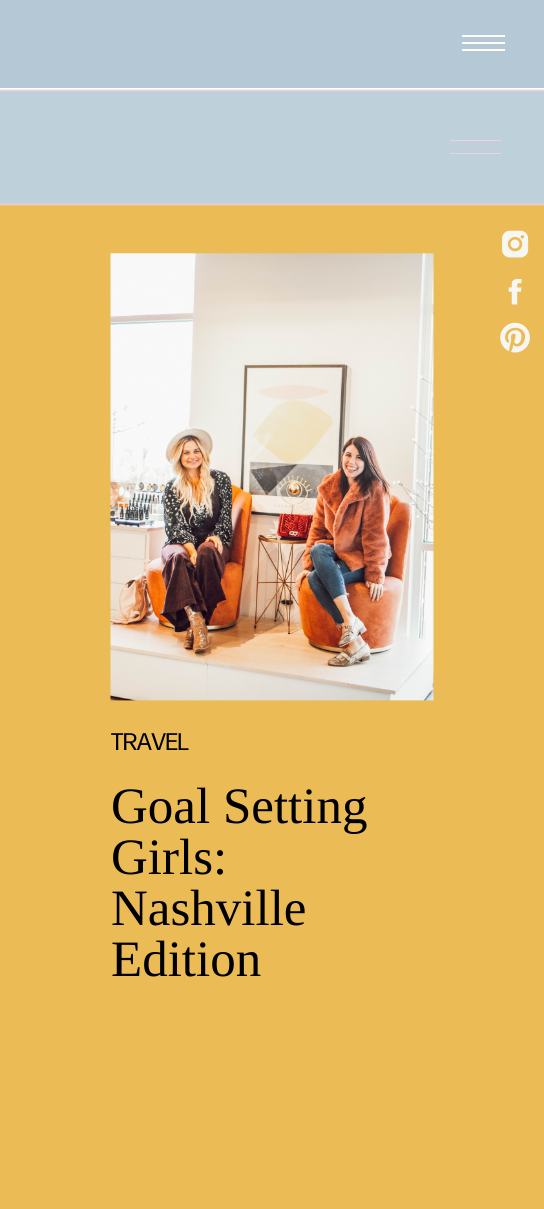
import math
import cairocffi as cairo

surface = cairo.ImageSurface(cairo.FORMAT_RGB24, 544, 1209)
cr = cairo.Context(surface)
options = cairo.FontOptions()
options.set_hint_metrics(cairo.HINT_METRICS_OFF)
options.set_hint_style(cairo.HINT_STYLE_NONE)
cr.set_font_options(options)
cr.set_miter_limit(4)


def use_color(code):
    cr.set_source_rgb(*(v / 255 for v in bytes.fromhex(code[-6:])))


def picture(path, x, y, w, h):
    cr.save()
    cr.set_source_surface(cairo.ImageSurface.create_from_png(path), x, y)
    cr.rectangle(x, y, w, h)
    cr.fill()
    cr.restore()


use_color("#ffffff")
cr.paint()
use_color("#b4c9d5")
cr.rectangle(0, 0, 544, 88)
cr.fill()
use_color("#fffdf8")
cr.new_path()
cr.move_to(462, 49)
cr.line_to(505, 49)
cr.line_to(505, 51)
cr.line_to(462, 51)
cr.close_path()
cr.move_to(462, 42)
cr.line_to(505, 42)
cr.line_to(505, 44)
cr.line_to(462, 44)
cr.close_path()
cr.move_to(462, 35)
cr.line_to(505, 35)
cr.line_to(505, 37)
cr.line_to(462, 37)
cr.close_path()
cr.fill()
use_color("#bed0da")
cr.rectangle(0, 91, 544, 113)
cr.fill()
cr.new_path()
cr.move_to(0, 90.5)
cr.line_to(544, 90.5)
use_color("#e8d0df")
cr.set_line_width(1.7)
cr.stroke()
use_color("#f2d0e0")
cr.rectangle(450, 140, 51, 1)
cr.fill()
cr.rectangle(450, 153, 51, 1)
cr.fill()
use_color("#ebbb56")
cr.rectangle(0, 205, 544, 1004)
cr.fill()
cr.new_path()
cr.move_to(0, 204.5)
cr.line_to(544, 204.5)
use_color("#f1ccc4")
cr.stroke()
picture("img1.png", 502, 230, 27, 28)
picture("img2.png", 508, 279, 14, 26)
picture("img3.png", 500, 322, 30, 31)
picture("img4.png", 110, 253, 324, 448)
cr.select_font_face("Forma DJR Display")
cr.set_font_size(24)
use_color("#000000")
cr.move_to(111, 750)
cr.show_text("TRAVEL")
cr.select_font_face("Liberation Serif")
cr.set_font_size(51)
cr.move_to(111, 823)
cr.show_text("Goal Setting")
cr.move_to(111, 874)
cr.show_text("Girls:")
cr.move_to(111, 925)
cr.show_text("Nashville")
cr.move_to(111, 976)
cr.show_text("Edition")
surface.write_to_png("result.png")
